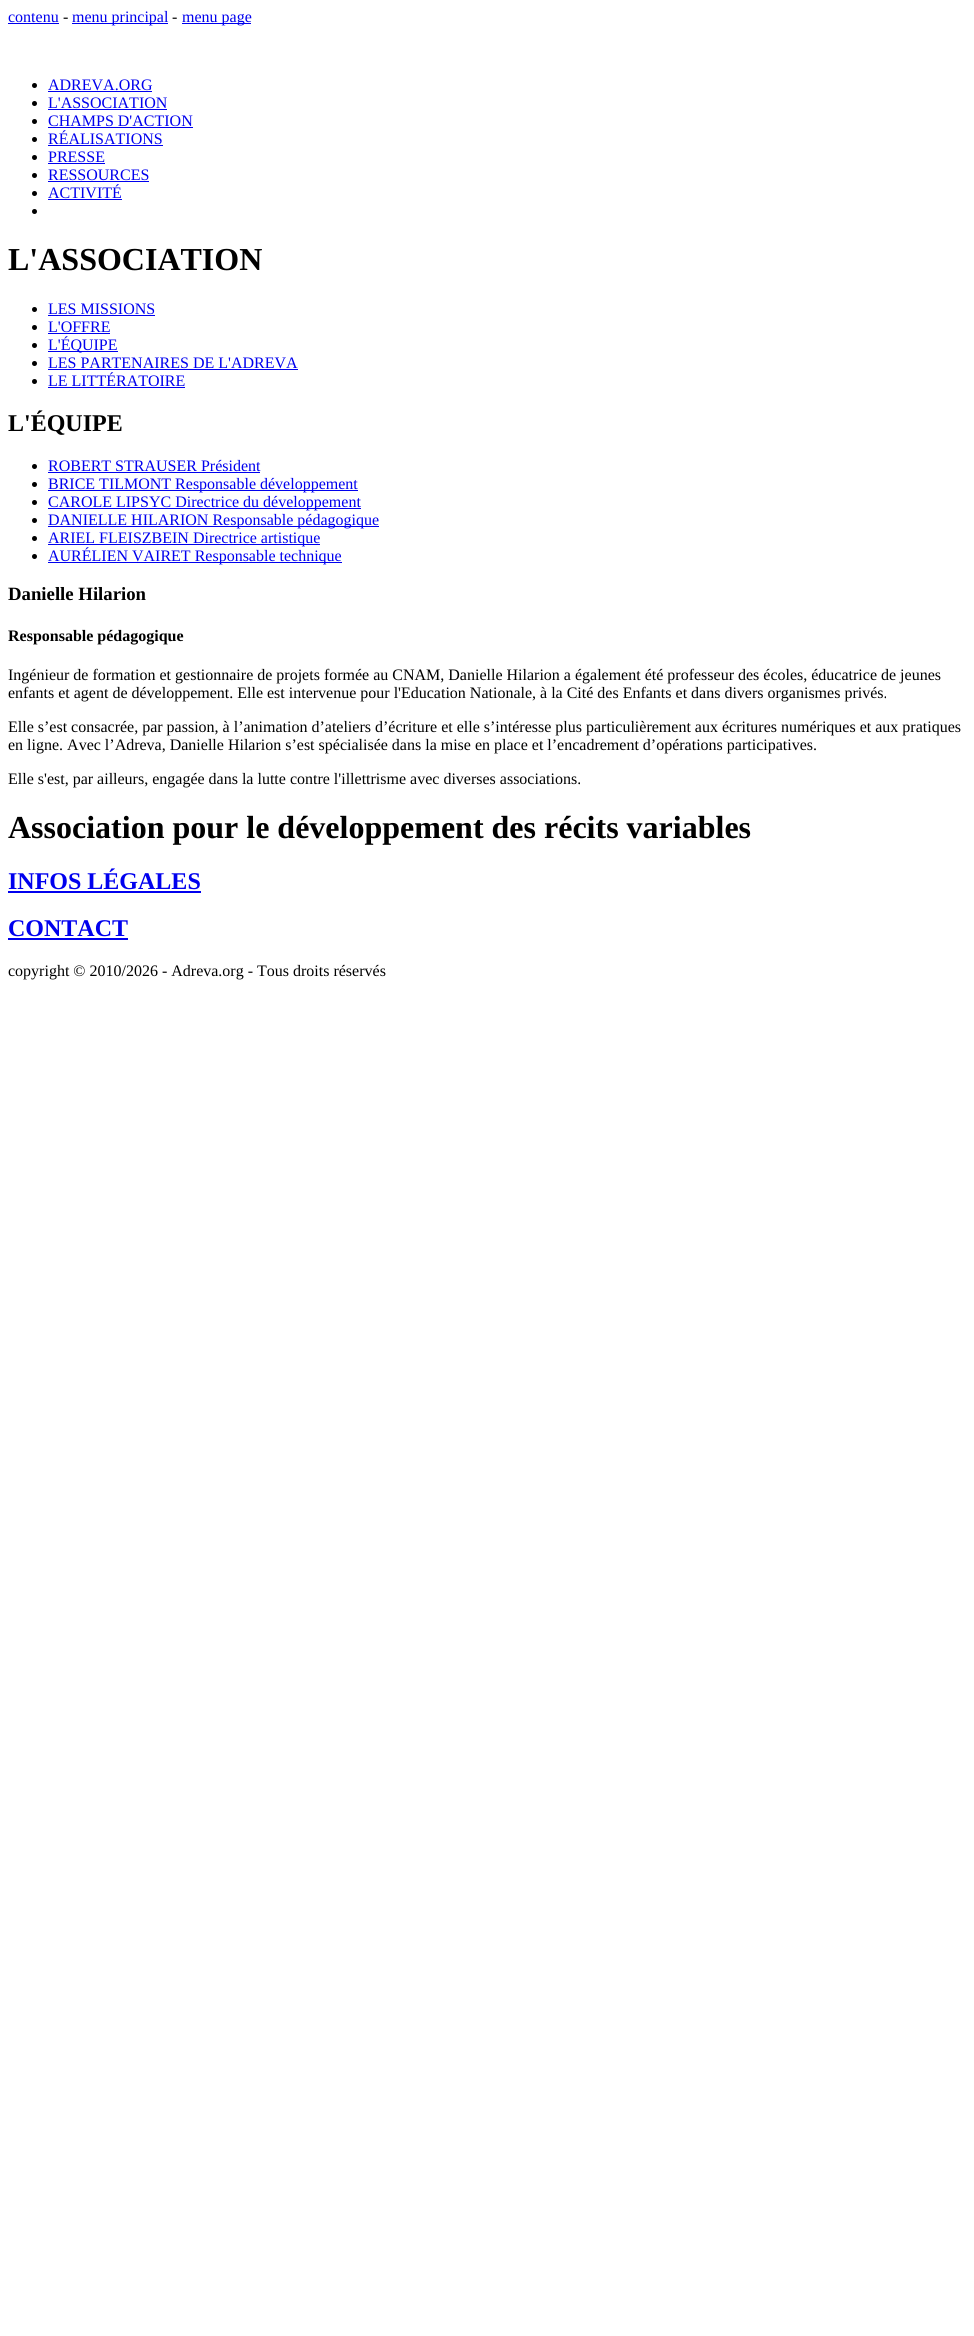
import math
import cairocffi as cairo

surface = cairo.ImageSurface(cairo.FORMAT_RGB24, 974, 2336)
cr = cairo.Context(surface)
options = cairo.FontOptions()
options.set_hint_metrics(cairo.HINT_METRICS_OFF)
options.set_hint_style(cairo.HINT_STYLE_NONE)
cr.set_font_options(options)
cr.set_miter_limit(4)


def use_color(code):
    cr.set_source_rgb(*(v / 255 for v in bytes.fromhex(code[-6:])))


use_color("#ffffff")
cr.paint()
cr.select_font_face("Liberation Serif")
cr.set_font_size(16)
use_color("#0000ee")
cr.move_to(8, 22)
cr.show_text("contenu")
cr.rectangle(8, 23, 51, 1)
cr.fill()
use_color("#000000")
cr.move_to(63, 22)
cr.show_text("-")
use_color("#0000ee")
cr.rectangle(72, 23, 96, 1)
cr.fill()
cr.move_to(72, 22)
cr.show_text("menu principal")
use_color("#000000")
cr.move_to(172, 22)
cr.show_text("-")
use_color("#0000ee")
cr.rectangle(182, 23, 69, 1)
cr.fill()
cr.move_to(182, 22)
cr.show_text("menu page")
use_color("#000000")
cr.new_path()
cr.arc(34.5, 85.5, 2.5, 0, 2 * math.pi)
cr.fill()
use_color("#0000ee")
cr.move_to(48, 90)
cr.show_text("ADREVA.ORG")
cr.rectangle(48, 91, 104, 1)
cr.fill()
use_color("#000000")
cr.arc(34.5, 103.5, 2.5, 0, 2 * math.pi)
cr.fill()
use_color("#0000ee")
cr.move_to(48, 108)
cr.show_text("L'ASSOCIATION")
cr.rectangle(48, 109, 119, 1)
cr.fill()
use_color("#000000")
cr.arc(34.5, 121.5, 2.5, 0, 2 * math.pi)
cr.fill()
use_color("#0000ee")
cr.move_to(48, 126)
cr.show_text("CHAMPS D'ACTION")
cr.rectangle(48, 127, 145, 1)
cr.fill()
use_color("#000000")
cr.arc(34.5, 139.5, 2.5, 0, 2 * math.pi)
cr.fill()
use_color("#0000ee")
cr.move_to(48, 144)
cr.show_text("RÉALISATIONS")
cr.rectangle(48, 145, 115, 1)
cr.fill()
use_color("#000000")
cr.arc(34.5, 157.5, 2.5, 0, 2 * math.pi)
cr.fill()
use_color("#0000ee")
cr.move_to(48, 162)
cr.show_text("PRESSE")
cr.rectangle(48, 163, 57, 1)
cr.fill()
use_color("#000000")
cr.arc(34.5, 175.5, 2.5, 0, 2 * math.pi)
cr.fill()
use_color("#0000ee")
cr.move_to(48, 180)
cr.show_text("RESSOURCES")
cr.rectangle(48, 181, 101, 1)
cr.fill()
use_color("#000000")
cr.arc(34.5, 193.5, 2.5, 0, 2 * math.pi)
cr.fill()
use_color("#0000ee")
cr.move_to(48, 198)
cr.show_text("ACTIVITÉ")
cr.rectangle(48, 199, 74, 1)
cr.fill()
use_color("#000000")
cr.arc(34.5, 211.5, 2.5, 0, 2 * math.pi)
cr.fill()
cr.select_font_face("Liberation Serif", cairo.FONT_SLANT_NORMAL, cairo.FONT_WEIGHT_BOLD)
cr.set_font_size(32)
cr.move_to(8, 270)
cr.show_text("L'ASSOCIATION")
cr.new_path()
cr.arc(34.5, 309.5, 2.5, 0, 2 * math.pi)
cr.fill()
cr.select_font_face("Liberation Serif")
cr.set_font_size(16)
use_color("#0000ee")
cr.move_to(48, 314)
cr.show_text("LES MISSIONS")
cr.rectangle(48, 315, 107, 1)
cr.fill()
use_color("#000000")
cr.arc(34.5, 327.5, 2.5, 0, 2 * math.pi)
cr.fill()
use_color("#0000ee")
cr.move_to(48, 332)
cr.show_text("L'OFFRE")
cr.rectangle(48, 333, 62, 1)
cr.fill()
use_color("#000000")
cr.arc(34.5, 345.5, 2.5, 0, 2 * math.pi)
cr.fill()
use_color("#0000ee")
cr.rectangle(48, 351, 70, 1)
cr.fill()
cr.move_to(48, 350)
cr.show_text("L'ÉQUIPE")
use_color("#000000")
cr.new_path()
cr.arc(34.5, 363.5, 2.5, 0, 2 * math.pi)
cr.fill()
use_color("#0000ee")
cr.move_to(48, 368)
cr.show_text("LES PARTENAIRES DE L'ADREVA")
cr.rectangle(48, 369, 250, 1)
cr.fill()
use_color("#000000")
cr.arc(34.5, 381.5, 2.5, 0, 2 * math.pi)
cr.fill()
use_color("#0000ee")
cr.move_to(48, 386)
cr.show_text("LE LITTÉRATOIRE")
cr.rectangle(48, 387, 137, 1)
cr.fill()
cr.select_font_face("Liberation Serif", cairo.FONT_SLANT_NORMAL, cairo.FONT_WEIGHT_BOLD)
cr.set_font_size(24)
use_color("#000000")
cr.move_to(8, 431)
cr.show_text("L'ÉQUIPE")
cr.new_path()
cr.arc(34.5, 466.5, 2.5, 0, 2 * math.pi)
cr.fill()
cr.select_font_face("Liberation Serif")
cr.set_font_size(16)
use_color("#0000ee")
cr.move_to(48, 471)
cr.show_text("ROBERT STRAUSER Président")
cr.rectangle(48, 472, 212, 1)
cr.fill()
use_color("#000000")
cr.arc(34.5, 484.5, 2.5, 0, 2 * math.pi)
cr.fill()
use_color("#0000ee")
cr.rectangle(48, 490, 310, 1)
cr.fill()
cr.move_to(48, 489)
cr.show_text("BRICE TILMONT Responsable développement")
use_color("#000000")
cr.new_path()
cr.arc(34.5, 502.5, 2.5, 0, 2 * math.pi)
cr.fill()
use_color("#0000ee")
cr.rectangle(48, 508, 313, 1)
cr.fill()
cr.move_to(48, 507)
cr.show_text("CAROLE LIPSYC Directrice du développement")
use_color("#000000")
cr.new_path()
cr.arc(34.5, 520.5, 2.5, 0, 2 * math.pi)
cr.fill()
use_color("#0000ee")
cr.rectangle(48, 526, 331, 1)
cr.fill()
cr.move_to(48, 525)
cr.show_text("DANIELLE HILARION Responsable pédagogique")
use_color("#000000")
cr.new_path()
cr.arc(34.5, 538.5, 2.5, 0, 2 * math.pi)
cr.fill()
use_color("#0000ee")
cr.rectangle(48, 544, 272, 1)
cr.fill()
cr.move_to(48, 543)
cr.show_text("ARIEL FLEISZBEIN Directrice artistique")
use_color("#000000")
cr.new_path()
cr.arc(34.5, 556.5, 2.5, 0, 2 * math.pi)
cr.fill()
use_color("#0000ee")
cr.rectangle(48, 562, 294, 1)
cr.fill()
cr.move_to(48, 561)
cr.show_text("AURÉLIEN VAIRET Responsable technique")
cr.select_font_face("Liberation Serif", cairo.FONT_SLANT_NORMAL, cairo.FONT_WEIGHT_BOLD)
cr.set_font_size(18.75)
use_color("#000000")
cr.move_to(8, 600)
cr.show_text("Danielle Hilarion")
cr.set_font_size(16)
cr.move_to(8, 641)
cr.show_text("Responsable pédagogique")
cr.select_font_face("Liberation Serif")
cr.move_to(8, 680)
cr.show_text("Ingénieur de formation et gestionnaire de projets formée au CNAM, Danielle Hilarion a également été professeur des écoles, éducatrice de jeunes")
cr.move_to(8, 698)
cr.show_text("enfants et agent de développement. Elle est intervenue pour l'Education Nationale, à la Cité des Enfants et dans divers organismes privés.")
cr.move_to(8, 732)
cr.show_text("Elle s’est consacrée, par passion, à l’animation d’ateliers d’écriture et elle s’intéresse plus particulièrement aux écritures numériques et aux pratiques")
cr.move_to(8, 750)
cr.show_text("en ligne. Avec l’Adreva, Danielle Hilarion s’est spécialisée dans la mise en place et l’encadrement d’opérations participatives.")
cr.move_to(8, 784)
cr.show_text("Elle s'est, par ailleurs, engagée dans la lutte contre l'illettrisme avec diverses associations.")
cr.select_font_face("Liberation Serif", cairo.FONT_SLANT_NORMAL, cairo.FONT_WEIGHT_BOLD)
cr.set_font_size(32)
cr.move_to(8, 838)
cr.show_text("Association pour le développement des récits variables")
cr.set_font_size(24)
use_color("#0000ee")
cr.move_to(8, 889)
cr.show_text("INFOS LÉGALES")
cr.rectangle(8, 891, 193, 2)
cr.fill()
cr.move_to(8, 936)
cr.show_text("CONTACT")
cr.rectangle(8, 938, 120, 2)
cr.fill()
cr.select_font_face("Liberation Serif")
cr.set_font_size(16)
use_color("#000000")
cr.move_to(8, 976)
cr.show_text("copyright © 2010/2026 - Adreva.org - Tous droits réservés")
surface.write_to_png("result.png")
